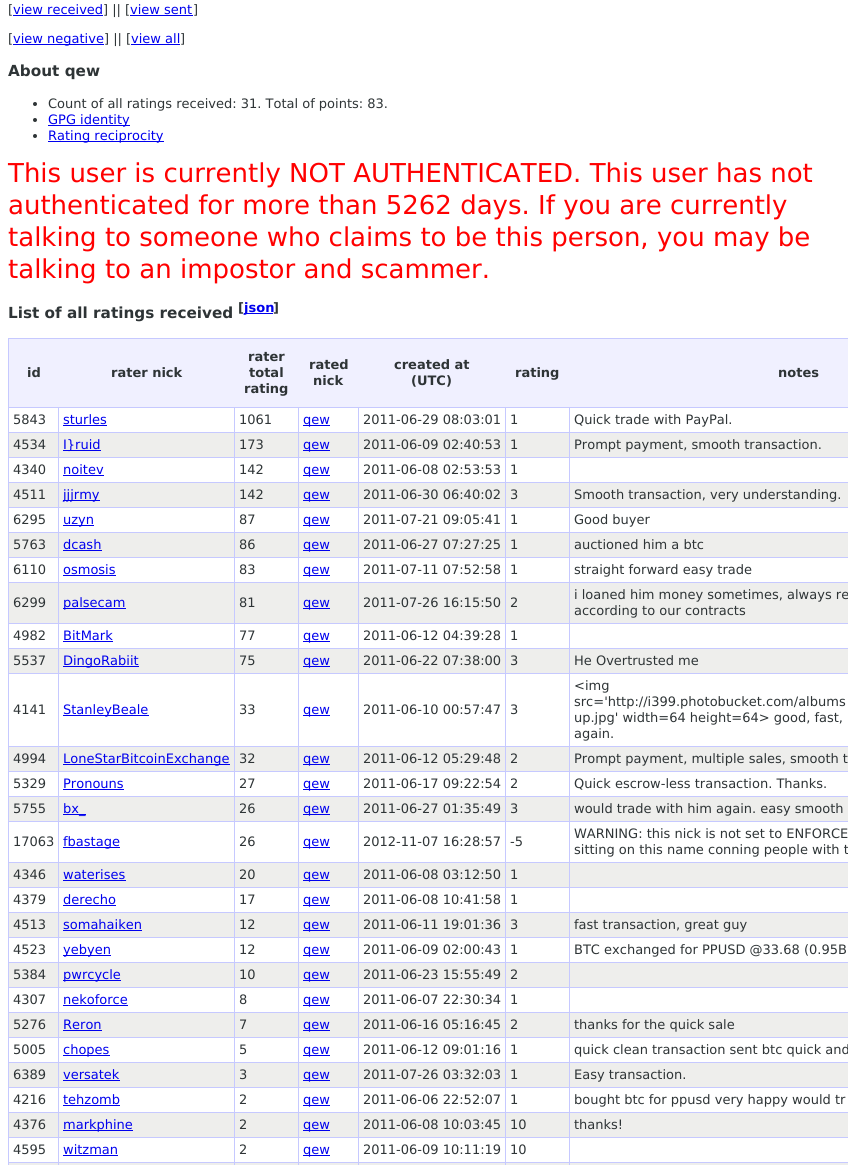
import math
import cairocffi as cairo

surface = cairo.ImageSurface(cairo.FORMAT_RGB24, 848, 1165)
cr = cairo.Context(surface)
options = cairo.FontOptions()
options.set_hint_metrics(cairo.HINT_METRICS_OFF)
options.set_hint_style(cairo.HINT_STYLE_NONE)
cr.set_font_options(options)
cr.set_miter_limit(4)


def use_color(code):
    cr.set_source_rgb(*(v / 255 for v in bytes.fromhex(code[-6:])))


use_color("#ffffff")
cr.paint()
cr.select_font_face("DejaVu Sans")
cr.set_font_size(13)
use_color("#2e3436")
cr.move_to(8, 14)
cr.show_text("[")
use_color("#0000ee")
cr.move_to(13, 14)
cr.show_text("view received")
cr.rectangle(13, 15, 90, 1)
cr.fill()
use_color("#2e3436")
cr.move_to(103, 14)
cr.show_text("] || [")
use_color("#0000ee")
cr.move_to(130, 14)
cr.show_text("view sent")
cr.rectangle(130, 15, 63, 1)
cr.fill()
use_color("#2e3436")
cr.move_to(193, 14)
cr.show_text("]")
cr.move_to(8, 43)
cr.show_text("[")
use_color("#0000ee")
cr.rectangle(13, 44, 91, 1)
cr.fill()
cr.move_to(13, 43)
cr.show_text("view negative")
use_color("#2e3436")
cr.move_to(104, 43)
cr.show_text("] || [")
use_color("#0000ee")
cr.move_to(131, 43)
cr.show_text("view all")
cr.rectangle(131, 44, 49, 1)
cr.fill()
use_color("#2e3436")
cr.move_to(180, 43)
cr.show_text("]")
cr.select_font_face("DejaVu Sans", cairo.FONT_SLANT_NORMAL, cairo.FONT_WEIGHT_BOLD)
cr.set_font_size(15.25)
cr.move_to(8, 76)
cr.show_text("About qew")
cr.new_path()
cr.arc(35, 104, 2, 0, 2 * math.pi)
cr.fill()
cr.select_font_face("DejaVu Sans")
cr.set_font_size(13)
cr.move_to(48, 108)
cr.show_text("Count of all ratings received: 31. Total of points: 83.")
cr.new_path()
cr.arc(35, 120, 2, 0, 2 * math.pi)
cr.fill()
use_color("#0000ee")
cr.rectangle(48, 125, 82, 1)
cr.fill()
cr.move_to(48, 124)
cr.show_text("GPG identity")
use_color("#2e3436")
cr.new_path()
cr.arc(35, 136, 2, 0, 2 * math.pi)
cr.fill()
use_color("#0000ee")
cr.rectangle(48, 141, 116, 1)
cr.fill()
cr.move_to(48, 140)
cr.show_text("Rating reciprocity")
cr.set_font_size(26)
use_color("#ff0000")
cr.move_to(8, 182)
cr.show_text("This user is currently NOT AUTHENTICATED. This user has not")
cr.move_to(8, 214)
cr.show_text("authenticated for more than 5262 days. If you are currently")
cr.move_to(8, 246)
cr.show_text("talking to someone who claims to be this person, you may be")
cr.move_to(8, 278)
cr.show_text("talking to an impostor and scammer.")
cr.select_font_face("DejaVu Sans", cairo.FONT_SLANT_NORMAL, cairo.FONT_WEIGHT_BOLD)
cr.set_font_size(15.25)
use_color("#2e3436")
cr.move_to(8, 318)
cr.show_text("List of all ratings received")
cr.set_font_size(13)
cr.move_to(238, 312)
cr.show_text("[")
use_color("#0000ee")
cr.rectangle(244, 313, 29, 1)
cr.fill()
cr.move_to(244, 312)
cr.show_text("json")
use_color("#2e3436")
cr.move_to(273, 312)
cr.show_text("]")
use_color("#c6c9ff")
cr.rectangle(8, 338, 840, 1)
cr.fill()
cr.rectangle(8, 338, 1, 827)
cr.fill()
use_color("#f0f0ff")
cr.rectangle(9, 339, 839, 68)
cr.fill()
use_color("#2e3436")
cr.move_to(27, 377)
cr.show_text("id")
cr.move_to(111, 377)
cr.show_text("rater nick")
cr.move_to(248, 361)
cr.show_text("rater")
cr.move_to(249, 377)
cr.show_text("total")
cr.move_to(244, 393)
cr.show_text("rating")
cr.move_to(309, 369)
cr.show_text("rated")
cr.move_to(313, 385)
cr.show_text("nick")
cr.move_to(394, 369)
cr.show_text("created at")
cr.move_to(411, 385)
cr.show_text("(UTC)")
cr.move_to(515, 377)
cr.show_text("rating")
cr.move_to(778, 377)
cr.show_text("notes")
use_color("#c6c9ff")
cr.rectangle(569, 407, 279, 1)
cr.fill()
cr.rectangle(569, 432, 279, 1)
cr.fill()
use_color("#eeeeec")
cr.rectangle(9, 433, 839, 24)
cr.fill()
use_color("#c6c9ff")
cr.rectangle(569, 457, 279, 1)
cr.fill()
cr.rectangle(569, 482, 279, 1)
cr.fill()
use_color("#eeeeec")
cr.rectangle(9, 483, 839, 24)
cr.fill()
use_color("#c6c9ff")
cr.rectangle(569, 507, 279, 1)
cr.fill()
cr.rectangle(569, 532, 279, 1)
cr.fill()
use_color("#eeeeec")
cr.rectangle(9, 533, 839, 24)
cr.fill()
use_color("#c6c9ff")
cr.rectangle(569, 557, 279, 1)
cr.fill()
cr.rectangle(569, 582, 279, 1)
cr.fill()
use_color("#eeeeec")
cr.rectangle(9, 583, 839, 40)
cr.fill()
use_color("#c6c9ff")
cr.rectangle(569, 623, 279, 1)
cr.fill()
cr.rectangle(569, 648, 279, 1)
cr.fill()
use_color("#eeeeec")
cr.rectangle(9, 649, 839, 24)
cr.fill()
use_color("#c6c9ff")
cr.rectangle(569, 673, 279, 1)
cr.fill()
cr.rectangle(569, 746, 279, 1)
cr.fill()
use_color("#eeeeec")
cr.rectangle(9, 747, 839, 24)
cr.fill()
use_color("#c6c9ff")
cr.rectangle(569, 771, 279, 1)
cr.fill()
cr.rectangle(569, 796, 279, 1)
cr.fill()
use_color("#eeeeec")
cr.rectangle(9, 797, 839, 24)
cr.fill()
use_color("#c6c9ff")
cr.rectangle(569, 821, 279, 1)
cr.fill()
cr.rectangle(569, 862, 279, 1)
cr.fill()
use_color("#eeeeec")
cr.rectangle(9, 863, 839, 24)
cr.fill()
use_color("#c6c9ff")
cr.rectangle(569, 887, 279, 1)
cr.fill()
cr.rectangle(569, 912, 279, 1)
cr.fill()
use_color("#eeeeec")
cr.rectangle(9, 913, 839, 24)
cr.fill()
use_color("#c6c9ff")
cr.rectangle(569, 937, 279, 1)
cr.fill()
cr.rectangle(569, 962, 279, 1)
cr.fill()
use_color("#eeeeec")
cr.rectangle(9, 963, 839, 24)
cr.fill()
use_color("#c6c9ff")
cr.rectangle(569, 987, 279, 1)
cr.fill()
cr.rectangle(569, 1012, 279, 1)
cr.fill()
use_color("#eeeeec")
cr.rectangle(9, 1013, 839, 24)
cr.fill()
use_color("#c6c9ff")
cr.rectangle(569, 1037, 279, 1)
cr.fill()
cr.rectangle(569, 1062, 279, 1)
cr.fill()
use_color("#eeeeec")
cr.rectangle(9, 1063, 839, 24)
cr.fill()
use_color("#c6c9ff")
cr.rectangle(569, 1087, 279, 1)
cr.fill()
cr.rectangle(569, 1112, 279, 1)
cr.fill()
use_color("#eeeeec")
cr.rectangle(9, 1113, 839, 24)
cr.fill()
use_color("#c6c9ff")
cr.rectangle(569, 1137, 279, 1)
cr.fill()
cr.rectangle(569, 1162, 279, 1)
cr.fill()
use_color("#eeeeec")
cr.rectangle(9, 1163, 839, 2)
cr.fill()
use_color("#c6c9ff")
cr.rectangle(569, 1162, 1, 3)
cr.fill()
cr.rectangle(505, 1162, 65, 1)
cr.fill()
cr.rectangle(569, 1137, 1, 26)
cr.fill()
cr.rectangle(505, 1137, 65, 1)
cr.fill()
cr.rectangle(569, 1112, 1, 26)
cr.fill()
cr.rectangle(505, 1112, 65, 1)
cr.fill()
cr.rectangle(569, 1087, 1, 26)
cr.fill()
cr.rectangle(505, 1087, 65, 1)
cr.fill()
cr.rectangle(569, 1062, 1, 26)
cr.fill()
cr.rectangle(505, 1062, 65, 1)
cr.fill()
cr.rectangle(569, 1037, 1, 26)
cr.fill()
cr.rectangle(505, 1037, 65, 1)
cr.fill()
cr.rectangle(569, 1012, 1, 26)
cr.fill()
cr.rectangle(505, 1012, 65, 1)
cr.fill()
cr.rectangle(569, 987, 1, 26)
cr.fill()
cr.rectangle(505, 987, 65, 1)
cr.fill()
cr.rectangle(569, 962, 1, 26)
cr.fill()
cr.rectangle(505, 962, 65, 1)
cr.fill()
cr.rectangle(569, 937, 1, 26)
cr.fill()
cr.rectangle(505, 937, 65, 1)
cr.fill()
cr.rectangle(569, 912, 1, 26)
cr.fill()
cr.rectangle(505, 912, 65, 1)
cr.fill()
cr.rectangle(569, 887, 1, 26)
cr.fill()
cr.rectangle(505, 887, 65, 1)
cr.fill()
cr.rectangle(569, 862, 1, 26)
cr.fill()
cr.rectangle(505, 862, 65, 1)
cr.fill()
cr.rectangle(569, 821, 1, 42)
cr.fill()
cr.rectangle(505, 821, 65, 1)
cr.fill()
cr.rectangle(569, 796, 1, 26)
cr.fill()
cr.rectangle(505, 796, 65, 1)
cr.fill()
cr.rectangle(569, 771, 1, 26)
cr.fill()
cr.rectangle(505, 771, 65, 1)
cr.fill()
cr.rectangle(569, 746, 1, 26)
cr.fill()
cr.rectangle(505, 746, 65, 1)
cr.fill()
cr.rectangle(569, 673, 1, 74)
cr.fill()
cr.rectangle(505, 673, 65, 1)
cr.fill()
cr.rectangle(569, 648, 1, 26)
cr.fill()
cr.rectangle(505, 648, 65, 1)
cr.fill()
cr.rectangle(569, 623, 1, 26)
cr.fill()
cr.rectangle(505, 623, 65, 1)
cr.fill()
cr.rectangle(569, 582, 1, 42)
cr.fill()
cr.rectangle(505, 582, 65, 1)
cr.fill()
cr.rectangle(569, 557, 1, 26)
cr.fill()
cr.rectangle(505, 557, 65, 1)
cr.fill()
cr.rectangle(569, 532, 1, 26)
cr.fill()
cr.rectangle(505, 532, 65, 1)
cr.fill()
cr.rectangle(569, 507, 1, 26)
cr.fill()
cr.rectangle(505, 507, 65, 1)
cr.fill()
cr.rectangle(569, 482, 1, 26)
cr.fill()
cr.rectangle(505, 482, 65, 1)
cr.fill()
cr.rectangle(569, 457, 1, 26)
cr.fill()
cr.rectangle(505, 457, 65, 1)
cr.fill()
cr.rectangle(569, 432, 1, 26)
cr.fill()
cr.rectangle(505, 432, 65, 1)
cr.fill()
cr.rectangle(569, 407, 1, 26)
cr.fill()
cr.rectangle(505, 407, 65, 1)
cr.fill()
cr.rectangle(505, 1162, 1, 3)
cr.fill()
cr.rectangle(358, 1162, 148, 1)
cr.fill()
cr.rectangle(505, 1137, 1, 26)
cr.fill()
cr.rectangle(358, 1137, 148, 1)
cr.fill()
cr.rectangle(505, 1112, 1, 26)
cr.fill()
cr.rectangle(358, 1112, 148, 1)
cr.fill()
cr.rectangle(505, 1087, 1, 26)
cr.fill()
cr.rectangle(358, 1087, 148, 1)
cr.fill()
cr.rectangle(505, 1062, 1, 26)
cr.fill()
cr.rectangle(358, 1062, 148, 1)
cr.fill()
cr.rectangle(505, 1037, 1, 26)
cr.fill()
cr.rectangle(358, 1037, 148, 1)
cr.fill()
cr.rectangle(505, 1012, 1, 26)
cr.fill()
cr.rectangle(358, 1012, 148, 1)
cr.fill()
cr.rectangle(505, 987, 1, 26)
cr.fill()
cr.rectangle(358, 987, 148, 1)
cr.fill()
cr.rectangle(505, 962, 1, 26)
cr.fill()
cr.rectangle(358, 962, 148, 1)
cr.fill()
cr.rectangle(505, 937, 1, 26)
cr.fill()
cr.rectangle(358, 937, 148, 1)
cr.fill()
cr.rectangle(505, 912, 1, 26)
cr.fill()
cr.rectangle(358, 912, 148, 1)
cr.fill()
cr.rectangle(505, 887, 1, 26)
cr.fill()
cr.rectangle(358, 887, 148, 1)
cr.fill()
cr.rectangle(505, 862, 1, 26)
cr.fill()
cr.rectangle(358, 862, 148, 1)
cr.fill()
cr.rectangle(505, 821, 1, 42)
cr.fill()
cr.rectangle(358, 821, 148, 1)
cr.fill()
cr.rectangle(505, 796, 1, 26)
cr.fill()
cr.rectangle(358, 796, 148, 1)
cr.fill()
cr.rectangle(505, 771, 1, 26)
cr.fill()
cr.rectangle(358, 771, 148, 1)
cr.fill()
cr.rectangle(505, 746, 1, 26)
cr.fill()
cr.rectangle(358, 746, 148, 1)
cr.fill()
cr.rectangle(505, 673, 1, 74)
cr.fill()
cr.rectangle(358, 673, 148, 1)
cr.fill()
cr.rectangle(505, 648, 1, 26)
cr.fill()
cr.rectangle(358, 648, 148, 1)
cr.fill()
cr.rectangle(505, 623, 1, 26)
cr.fill()
cr.rectangle(358, 623, 148, 1)
cr.fill()
cr.rectangle(505, 582, 1, 42)
cr.fill()
cr.rectangle(358, 582, 148, 1)
cr.fill()
cr.rectangle(505, 557, 1, 26)
cr.fill()
cr.rectangle(358, 557, 148, 1)
cr.fill()
cr.rectangle(505, 532, 1, 26)
cr.fill()
cr.rectangle(358, 532, 148, 1)
cr.fill()
cr.rectangle(505, 507, 1, 26)
cr.fill()
cr.rectangle(358, 507, 148, 1)
cr.fill()
cr.rectangle(505, 482, 1, 26)
cr.fill()
cr.rectangle(358, 482, 148, 1)
cr.fill()
cr.rectangle(505, 457, 1, 26)
cr.fill()
cr.rectangle(358, 457, 148, 1)
cr.fill()
cr.rectangle(505, 432, 1, 26)
cr.fill()
cr.rectangle(358, 432, 148, 1)
cr.fill()
cr.rectangle(505, 407, 1, 26)
cr.fill()
cr.rectangle(358, 407, 148, 1)
cr.fill()
cr.rectangle(358, 1162, 1, 3)
cr.fill()
cr.rectangle(298, 1162, 61, 1)
cr.fill()
cr.rectangle(358, 1137, 1, 26)
cr.fill()
cr.rectangle(298, 1137, 61, 1)
cr.fill()
cr.rectangle(358, 1112, 1, 26)
cr.fill()
cr.rectangle(298, 1112, 61, 1)
cr.fill()
cr.rectangle(358, 1087, 1, 26)
cr.fill()
cr.rectangle(298, 1087, 61, 1)
cr.fill()
cr.rectangle(358, 1062, 1, 26)
cr.fill()
cr.rectangle(298, 1062, 61, 1)
cr.fill()
cr.rectangle(358, 1037, 1, 26)
cr.fill()
cr.rectangle(298, 1037, 61, 1)
cr.fill()
cr.rectangle(358, 1012, 1, 26)
cr.fill()
cr.rectangle(298, 1012, 61, 1)
cr.fill()
cr.rectangle(358, 987, 1, 26)
cr.fill()
cr.rectangle(298, 987, 61, 1)
cr.fill()
cr.rectangle(358, 962, 1, 26)
cr.fill()
cr.rectangle(298, 962, 61, 1)
cr.fill()
cr.rectangle(358, 937, 1, 26)
cr.fill()
cr.rectangle(298, 937, 61, 1)
cr.fill()
cr.rectangle(358, 912, 1, 26)
cr.fill()
cr.rectangle(298, 912, 61, 1)
cr.fill()
cr.rectangle(358, 887, 1, 26)
cr.fill()
cr.rectangle(298, 887, 61, 1)
cr.fill()
cr.rectangle(358, 862, 1, 26)
cr.fill()
cr.rectangle(298, 862, 61, 1)
cr.fill()
cr.rectangle(358, 821, 1, 42)
cr.fill()
cr.rectangle(298, 821, 61, 1)
cr.fill()
cr.rectangle(358, 796, 1, 26)
cr.fill()
cr.rectangle(298, 796, 61, 1)
cr.fill()
cr.rectangle(358, 771, 1, 26)
cr.fill()
cr.rectangle(298, 771, 61, 1)
cr.fill()
cr.rectangle(358, 746, 1, 26)
cr.fill()
cr.rectangle(298, 746, 61, 1)
cr.fill()
cr.rectangle(358, 673, 1, 74)
cr.fill()
cr.rectangle(298, 673, 61, 1)
cr.fill()
cr.rectangle(358, 648, 1, 26)
cr.fill()
cr.rectangle(298, 648, 61, 1)
cr.fill()
cr.rectangle(358, 623, 1, 26)
cr.fill()
cr.rectangle(298, 623, 61, 1)
cr.fill()
cr.rectangle(358, 582, 1, 42)
cr.fill()
cr.rectangle(298, 582, 61, 1)
cr.fill()
cr.rectangle(358, 557, 1, 26)
cr.fill()
cr.rectangle(298, 557, 61, 1)
cr.fill()
cr.rectangle(358, 532, 1, 26)
cr.fill()
cr.rectangle(298, 532, 61, 1)
cr.fill()
cr.rectangle(358, 507, 1, 26)
cr.fill()
cr.rectangle(298, 507, 61, 1)
cr.fill()
cr.rectangle(358, 482, 1, 26)
cr.fill()
cr.rectangle(298, 482, 61, 1)
cr.fill()
cr.rectangle(358, 457, 1, 26)
cr.fill()
cr.rectangle(298, 457, 61, 1)
cr.fill()
cr.rectangle(358, 432, 1, 26)
cr.fill()
cr.rectangle(298, 432, 61, 1)
cr.fill()
cr.rectangle(358, 407, 1, 26)
cr.fill()
cr.rectangle(298, 407, 61, 1)
cr.fill()
cr.rectangle(298, 1162, 1, 3)
cr.fill()
cr.rectangle(234, 1162, 65, 1)
cr.fill()
cr.rectangle(298, 1137, 1, 26)
cr.fill()
cr.rectangle(234, 1137, 65, 1)
cr.fill()
cr.rectangle(298, 1112, 1, 26)
cr.fill()
cr.rectangle(234, 1112, 65, 1)
cr.fill()
cr.rectangle(298, 1087, 1, 26)
cr.fill()
cr.rectangle(234, 1087, 65, 1)
cr.fill()
cr.rectangle(298, 1062, 1, 26)
cr.fill()
cr.rectangle(234, 1062, 65, 1)
cr.fill()
cr.rectangle(298, 1037, 1, 26)
cr.fill()
cr.rectangle(234, 1037, 65, 1)
cr.fill()
cr.rectangle(298, 1012, 1, 26)
cr.fill()
cr.rectangle(234, 1012, 65, 1)
cr.fill()
cr.rectangle(298, 987, 1, 26)
cr.fill()
cr.rectangle(234, 987, 65, 1)
cr.fill()
cr.rectangle(298, 962, 1, 26)
cr.fill()
cr.rectangle(234, 962, 65, 1)
cr.fill()
cr.rectangle(298, 937, 1, 26)
cr.fill()
cr.rectangle(234, 937, 65, 1)
cr.fill()
cr.rectangle(298, 912, 1, 26)
cr.fill()
cr.rectangle(234, 912, 65, 1)
cr.fill()
cr.rectangle(298, 887, 1, 26)
cr.fill()
cr.rectangle(234, 887, 65, 1)
cr.fill()
cr.rectangle(298, 862, 1, 26)
cr.fill()
cr.rectangle(234, 862, 65, 1)
cr.fill()
cr.rectangle(298, 821, 1, 42)
cr.fill()
cr.rectangle(234, 821, 65, 1)
cr.fill()
cr.rectangle(298, 796, 1, 26)
cr.fill()
cr.rectangle(234, 796, 65, 1)
cr.fill()
cr.rectangle(298, 771, 1, 26)
cr.fill()
cr.rectangle(234, 771, 65, 1)
cr.fill()
cr.rectangle(298, 746, 1, 26)
cr.fill()
cr.rectangle(234, 746, 65, 1)
cr.fill()
cr.rectangle(298, 673, 1, 74)
cr.fill()
cr.rectangle(234, 673, 65, 1)
cr.fill()
cr.rectangle(298, 648, 1, 26)
cr.fill()
cr.rectangle(234, 648, 65, 1)
cr.fill()
cr.rectangle(298, 623, 1, 26)
cr.fill()
cr.rectangle(234, 623, 65, 1)
cr.fill()
cr.rectangle(298, 582, 1, 42)
cr.fill()
cr.rectangle(234, 582, 65, 1)
cr.fill()
cr.rectangle(298, 557, 1, 26)
cr.fill()
cr.rectangle(234, 557, 65, 1)
cr.fill()
cr.rectangle(298, 532, 1, 26)
cr.fill()
cr.rectangle(234, 532, 65, 1)
cr.fill()
cr.rectangle(298, 507, 1, 26)
cr.fill()
cr.rectangle(234, 507, 65, 1)
cr.fill()
cr.rectangle(298, 482, 1, 26)
cr.fill()
cr.rectangle(234, 482, 65, 1)
cr.fill()
cr.rectangle(298, 457, 1, 26)
cr.fill()
cr.rectangle(234, 457, 65, 1)
cr.fill()
cr.rectangle(298, 432, 1, 26)
cr.fill()
cr.rectangle(234, 432, 65, 1)
cr.fill()
cr.rectangle(298, 407, 1, 26)
cr.fill()
cr.rectangle(234, 407, 65, 1)
cr.fill()
cr.rectangle(234, 1162, 1, 3)
cr.fill()
cr.rectangle(58, 1162, 177, 1)
cr.fill()
cr.rectangle(234, 1137, 1, 26)
cr.fill()
cr.rectangle(58, 1137, 177, 1)
cr.fill()
cr.rectangle(234, 1112, 1, 26)
cr.fill()
cr.rectangle(58, 1112, 177, 1)
cr.fill()
cr.rectangle(234, 1087, 1, 26)
cr.fill()
cr.rectangle(58, 1087, 177, 1)
cr.fill()
cr.rectangle(234, 1062, 1, 26)
cr.fill()
cr.rectangle(58, 1062, 177, 1)
cr.fill()
cr.rectangle(234, 1037, 1, 26)
cr.fill()
cr.rectangle(58, 1037, 177, 1)
cr.fill()
cr.rectangle(234, 1012, 1, 26)
cr.fill()
cr.rectangle(58, 1012, 177, 1)
cr.fill()
cr.rectangle(234, 987, 1, 26)
cr.fill()
cr.rectangle(58, 987, 177, 1)
cr.fill()
cr.rectangle(234, 962, 1, 26)
cr.fill()
cr.rectangle(58, 962, 177, 1)
cr.fill()
cr.rectangle(234, 937, 1, 26)
cr.fill()
cr.rectangle(58, 937, 177, 1)
cr.fill()
cr.rectangle(234, 912, 1, 26)
cr.fill()
cr.rectangle(58, 912, 177, 1)
cr.fill()
cr.rectangle(234, 887, 1, 26)
cr.fill()
cr.rectangle(58, 887, 177, 1)
cr.fill()
cr.rectangle(234, 862, 1, 26)
cr.fill()
cr.rectangle(58, 862, 177, 1)
cr.fill()
cr.rectangle(234, 821, 1, 42)
cr.fill()
cr.rectangle(58, 821, 177, 1)
cr.fill()
cr.rectangle(234, 796, 1, 26)
cr.fill()
cr.rectangle(58, 796, 177, 1)
cr.fill()
cr.rectangle(234, 771, 1, 26)
cr.fill()
cr.rectangle(58, 771, 177, 1)
cr.fill()
cr.rectangle(234, 746, 1, 26)
cr.fill()
cr.rectangle(58, 746, 177, 1)
cr.fill()
cr.rectangle(234, 673, 1, 74)
cr.fill()
cr.rectangle(58, 673, 177, 1)
cr.fill()
cr.rectangle(234, 648, 1, 26)
cr.fill()
cr.rectangle(58, 648, 177, 1)
cr.fill()
cr.rectangle(234, 623, 1, 26)
cr.fill()
cr.rectangle(58, 623, 177, 1)
cr.fill()
cr.rectangle(234, 582, 1, 42)
cr.fill()
cr.rectangle(58, 582, 177, 1)
cr.fill()
cr.rectangle(234, 557, 1, 26)
cr.fill()
cr.rectangle(58, 557, 177, 1)
cr.fill()
cr.rectangle(234, 532, 1, 26)
cr.fill()
cr.rectangle(58, 532, 177, 1)
cr.fill()
cr.rectangle(234, 507, 1, 26)
cr.fill()
cr.rectangle(58, 507, 177, 1)
cr.fill()
cr.rectangle(234, 482, 1, 26)
cr.fill()
cr.rectangle(58, 482, 177, 1)
cr.fill()
cr.rectangle(234, 457, 1, 26)
cr.fill()
cr.rectangle(58, 457, 177, 1)
cr.fill()
cr.rectangle(234, 432, 1, 26)
cr.fill()
cr.rectangle(58, 432, 177, 1)
cr.fill()
cr.rectangle(234, 407, 1, 26)
cr.fill()
cr.rectangle(58, 407, 177, 1)
cr.fill()
cr.rectangle(58, 1162, 1, 3)
cr.fill()
cr.rectangle(8, 1162, 51, 1)
cr.fill()
cr.rectangle(58, 1137, 1, 26)
cr.fill()
cr.rectangle(8, 1137, 51, 1)
cr.fill()
cr.rectangle(58, 1112, 1, 26)
cr.fill()
cr.rectangle(8, 1112, 51, 1)
cr.fill()
cr.rectangle(58, 1087, 1, 26)
cr.fill()
cr.rectangle(8, 1087, 51, 1)
cr.fill()
cr.rectangle(58, 1062, 1, 26)
cr.fill()
cr.rectangle(8, 1062, 51, 1)
cr.fill()
cr.rectangle(58, 1037, 1, 26)
cr.fill()
cr.rectangle(8, 1037, 51, 1)
cr.fill()
cr.rectangle(58, 1012, 1, 26)
cr.fill()
cr.rectangle(8, 1012, 51, 1)
cr.fill()
cr.rectangle(58, 987, 1, 26)
cr.fill()
cr.rectangle(8, 987, 51, 1)
cr.fill()
cr.rectangle(58, 962, 1, 26)
cr.fill()
cr.rectangle(8, 962, 51, 1)
cr.fill()
cr.rectangle(58, 937, 1, 26)
cr.fill()
cr.rectangle(8, 937, 51, 1)
cr.fill()
cr.rectangle(58, 912, 1, 26)
cr.fill()
cr.rectangle(8, 912, 51, 1)
cr.fill()
cr.rectangle(58, 887, 1, 26)
cr.fill()
cr.rectangle(8, 887, 51, 1)
cr.fill()
cr.rectangle(58, 862, 1, 26)
cr.fill()
cr.rectangle(8, 862, 51, 1)
cr.fill()
cr.rectangle(58, 821, 1, 42)
cr.fill()
cr.rectangle(8, 821, 51, 1)
cr.fill()
cr.rectangle(58, 796, 1, 26)
cr.fill()
cr.rectangle(8, 796, 51, 1)
cr.fill()
cr.rectangle(58, 771, 1, 26)
cr.fill()
cr.rectangle(8, 771, 51, 1)
cr.fill()
cr.rectangle(58, 746, 1, 26)
cr.fill()
cr.rectangle(8, 746, 51, 1)
cr.fill()
cr.rectangle(58, 673, 1, 74)
cr.fill()
cr.rectangle(8, 673, 51, 1)
cr.fill()
cr.rectangle(58, 648, 1, 26)
cr.fill()
cr.rectangle(8, 648, 51, 1)
cr.fill()
cr.rectangle(58, 623, 1, 26)
cr.fill()
cr.rectangle(8, 623, 51, 1)
cr.fill()
cr.rectangle(58, 582, 1, 42)
cr.fill()
cr.rectangle(8, 582, 51, 1)
cr.fill()
cr.rectangle(58, 557, 1, 26)
cr.fill()
cr.rectangle(8, 557, 51, 1)
cr.fill()
cr.rectangle(58, 532, 1, 26)
cr.fill()
cr.rectangle(8, 532, 51, 1)
cr.fill()
cr.rectangle(58, 507, 1, 26)
cr.fill()
cr.rectangle(8, 507, 51, 1)
cr.fill()
cr.rectangle(58, 482, 1, 26)
cr.fill()
cr.rectangle(8, 482, 51, 1)
cr.fill()
cr.rectangle(58, 457, 1, 26)
cr.fill()
cr.rectangle(8, 457, 51, 1)
cr.fill()
cr.rectangle(58, 432, 1, 26)
cr.fill()
cr.rectangle(8, 432, 51, 1)
cr.fill()
cr.rectangle(58, 407, 1, 26)
cr.fill()
cr.rectangle(8, 407, 51, 1)
cr.fill()
cr.select_font_face("DejaVu Sans")
use_color("#2e3436")
cr.move_to(13, 424)
cr.show_text("5843")
use_color("#0000ee")
cr.move_to(63, 424)
cr.show_text("sturles")
cr.rectangle(63, 425, 44, 1)
cr.fill()
use_color("#2e3436")
cr.move_to(239, 424)
cr.show_text("1061")
use_color("#0000ee")
cr.rectangle(303, 425, 27, 1)
cr.fill()
cr.move_to(303, 424)
cr.show_text("qew")
use_color("#2e3436")
cr.move_to(363, 424)
cr.show_text("2011-06-29 08:03:01")
cr.move_to(510, 424)
cr.show_text("1")
cr.move_to(574, 424)
cr.show_text("Quick trade with PayPal.")
cr.move_to(13, 449)
cr.show_text("4534")
use_color("#0000ee")
cr.rectangle(63, 450, 38, 1)
cr.fill()
cr.move_to(63, 449)
cr.show_text("I}ruid")
use_color("#2e3436")
cr.move_to(239, 449)
cr.show_text("173")
use_color("#0000ee")
cr.rectangle(303, 450, 27, 1)
cr.fill()
cr.move_to(303, 449)
cr.show_text("qew")
use_color("#2e3436")
cr.move_to(363, 449)
cr.show_text("2011-06-09 02:40:53")
cr.move_to(510, 449)
cr.show_text("1")
cr.move_to(574, 449)
cr.show_text("Prompt payment, smooth transaction.")
cr.move_to(13, 474)
cr.show_text("4340")
use_color("#0000ee")
cr.move_to(63, 474)
cr.show_text("noitev")
cr.rectangle(63, 475, 41, 1)
cr.fill()
use_color("#2e3436")
cr.move_to(239, 474)
cr.show_text("142")
use_color("#0000ee")
cr.rectangle(303, 475, 27, 1)
cr.fill()
cr.move_to(303, 474)
cr.show_text("qew")
use_color("#2e3436")
cr.move_to(363, 474)
cr.show_text("2011-06-08 02:53:53")
cr.move_to(510, 474)
cr.show_text("1")
cr.move_to(13, 499)
cr.show_text("4511")
use_color("#0000ee")
cr.rectangle(63, 500, 37, 1)
cr.fill()
cr.move_to(63, 499)
cr.show_text("jjjrmy")
use_color("#2e3436")
cr.move_to(239, 499)
cr.show_text("142")
use_color("#0000ee")
cr.rectangle(303, 500, 27, 1)
cr.fill()
cr.move_to(303, 499)
cr.show_text("qew")
use_color("#2e3436")
cr.move_to(363, 499)
cr.show_text("2011-06-30 06:40:02")
cr.move_to(510, 499)
cr.show_text("3")
cr.move_to(574, 499)
cr.show_text("Smooth transaction, very understanding.")
cr.move_to(13, 524)
cr.show_text("6295")
use_color("#0000ee")
cr.rectangle(63, 525, 31, 1)
cr.fill()
cr.move_to(63, 524)
cr.show_text("uzyn")
use_color("#2e3436")
cr.move_to(239, 524)
cr.show_text("87")
use_color("#0000ee")
cr.rectangle(303, 525, 27, 1)
cr.fill()
cr.move_to(303, 524)
cr.show_text("qew")
use_color("#2e3436")
cr.move_to(363, 524)
cr.show_text("2011-07-21 09:05:41")
cr.move_to(510, 524)
cr.show_text("1")
cr.move_to(574, 524)
cr.show_text("Good buyer")
cr.move_to(13, 549)
cr.show_text("5763")
use_color("#0000ee")
cr.move_to(63, 549)
cr.show_text("dcash")
cr.rectangle(63, 550, 39, 1)
cr.fill()
use_color("#2e3436")
cr.move_to(239, 549)
cr.show_text("86")
use_color("#0000ee")
cr.rectangle(303, 550, 27, 1)
cr.fill()
cr.move_to(303, 549)
cr.show_text("qew")
use_color("#2e3436")
cr.move_to(363, 549)
cr.show_text("2011-06-27 07:27:25")
cr.move_to(510, 549)
cr.show_text("1")
cr.move_to(574, 549)
cr.show_text("auctioned him a btc")
cr.move_to(13, 574)
cr.show_text("6110")
use_color("#0000ee")
cr.move_to(63, 574)
cr.show_text("osmosis")
cr.rectangle(63, 575, 53, 1)
cr.fill()
use_color("#2e3436")
cr.move_to(239, 574)
cr.show_text("83")
use_color("#0000ee")
cr.rectangle(303, 575, 27, 1)
cr.fill()
cr.move_to(303, 574)
cr.show_text("qew")
use_color("#2e3436")
cr.move_to(363, 574)
cr.show_text("2011-07-11 07:52:58")
cr.move_to(510, 574)
cr.show_text("1")
cr.move_to(574, 574)
cr.show_text("straight forward easy trade")
cr.move_to(13, 607)
cr.show_text("6299")
use_color("#0000ee")
cr.rectangle(63, 608, 63, 1)
cr.fill()
cr.move_to(63, 607)
cr.show_text("palsecam")
use_color("#2e3436")
cr.move_to(239, 607)
cr.show_text("81")
use_color("#0000ee")
cr.rectangle(303, 608, 27, 1)
cr.fill()
cr.move_to(303, 607)
cr.show_text("qew")
use_color("#2e3436")
cr.move_to(363, 607)
cr.show_text("2011-07-26 16:15:50")
cr.move_to(510, 607)
cr.show_text("2")
cr.move_to(574, 599)
cr.show_text("i loaned him money sometimes, always re")
cr.move_to(574, 615)
cr.show_text("according to our contracts")
cr.move_to(13, 640)
cr.show_text("4982")
use_color("#0000ee")
cr.move_to(63, 640)
cr.show_text("BitMark")
cr.rectangle(63, 641, 50, 1)
cr.fill()
use_color("#2e3436")
cr.move_to(239, 640)
cr.show_text("77")
use_color("#0000ee")
cr.rectangle(303, 641, 27, 1)
cr.fill()
cr.move_to(303, 640)
cr.show_text("qew")
use_color("#2e3436")
cr.move_to(363, 640)
cr.show_text("2011-06-12 04:39:28")
cr.move_to(510, 640)
cr.show_text("1")
cr.move_to(13, 665)
cr.show_text("5537")
use_color("#0000ee")
cr.rectangle(63, 666, 76, 1)
cr.fill()
cr.move_to(63, 665)
cr.show_text("DingoRabiit")
use_color("#2e3436")
cr.move_to(239, 665)
cr.show_text("75")
use_color("#0000ee")
cr.rectangle(303, 666, 27, 1)
cr.fill()
cr.move_to(303, 665)
cr.show_text("qew")
use_color("#2e3436")
cr.move_to(363, 665)
cr.show_text("2011-06-22 07:38:00")
cr.move_to(510, 665)
cr.show_text("3")
cr.move_to(574, 665)
cr.show_text("He Overtrusted me")
cr.move_to(13, 714)
cr.show_text("4141")
use_color("#0000ee")
cr.rectangle(63, 715, 86, 1)
cr.fill()
cr.move_to(63, 714)
cr.show_text("StanleyBeale")
use_color("#2e3436")
cr.move_to(239, 714)
cr.show_text("33")
use_color("#0000ee")
cr.rectangle(303, 715, 27, 1)
cr.fill()
cr.move_to(303, 714)
cr.show_text("qew")
use_color("#2e3436")
cr.move_to(363, 714)
cr.show_text("2011-06-10 00:57:47")
cr.move_to(510, 714)
cr.show_text("3")
cr.move_to(574, 690)
cr.show_text("<img")
cr.move_to(574, 706)
cr.show_text("src='http://i399.photobucket.com/albums")
cr.move_to(574, 722)
cr.show_text("up.jpg' width=64 height=64> good, fast,")
cr.move_to(574, 738)
cr.show_text("again.")
cr.move_to(13, 763)
cr.show_text("4994")
use_color("#0000ee")
cr.rectangle(63, 764, 167, 1)
cr.fill()
cr.move_to(63, 763)
cr.show_text("LoneStarBitcoinExchange")
use_color("#2e3436")
cr.move_to(239, 763)
cr.show_text("32")
use_color("#0000ee")
cr.rectangle(303, 764, 27, 1)
cr.fill()
cr.move_to(303, 763)
cr.show_text("qew")
use_color("#2e3436")
cr.move_to(363, 763)
cr.show_text("2011-06-12 05:29:48")
cr.move_to(510, 763)
cr.show_text("2")
cr.move_to(574, 763)
cr.show_text("Prompt payment, multiple sales, smooth t")
cr.move_to(13, 788)
cr.show_text("5329")
use_color("#0000ee")
cr.move_to(63, 788)
cr.show_text("Pronouns")
cr.rectangle(63, 789, 61, 1)
cr.fill()
use_color("#2e3436")
cr.move_to(239, 788)
cr.show_text("27")
use_color("#0000ee")
cr.rectangle(303, 789, 27, 1)
cr.fill()
cr.move_to(303, 788)
cr.show_text("qew")
use_color("#2e3436")
cr.move_to(363, 788)
cr.show_text("2011-06-17 09:22:54")
cr.move_to(510, 788)
cr.show_text("2")
cr.move_to(574, 788)
cr.show_text("Quick escrow-less transaction. Thanks.")
cr.move_to(13, 813)
cr.show_text("5755")
use_color("#0000ee")
cr.rectangle(63, 814, 23, 1)
cr.fill()
cr.move_to(63, 813)
cr.show_text("bx_")
use_color("#2e3436")
cr.move_to(239, 813)
cr.show_text("26")
use_color("#0000ee")
cr.rectangle(303, 814, 27, 1)
cr.fill()
cr.move_to(303, 813)
cr.show_text("qew")
use_color("#2e3436")
cr.move_to(363, 813)
cr.show_text("2011-06-27 01:35:49")
cr.move_to(510, 813)
cr.show_text("3")
cr.move_to(574, 813)
cr.show_text("would trade with him again. easy smooth")
cr.move_to(13, 846)
cr.show_text("17063")
use_color("#0000ee")
cr.rectangle(63, 847, 57, 1)
cr.fill()
cr.move_to(63, 846)
cr.show_text("fbastage")
use_color("#2e3436")
cr.move_to(239, 846)
cr.show_text("26")
use_color("#0000ee")
cr.rectangle(303, 847, 27, 1)
cr.fill()
cr.move_to(303, 846)
cr.show_text("qew")
use_color("#2e3436")
cr.move_to(363, 846)
cr.show_text("2012-11-07 16:28:57")
cr.move_to(510, 846)
cr.show_text("-5")
cr.move_to(574, 838)
cr.show_text("WARNING: this nick is not set to ENFORCE")
cr.move_to(574, 854)
cr.show_text("sitting on this name conning people with t")
cr.move_to(13, 879)
cr.show_text("4346")
use_color("#0000ee")
cr.move_to(63, 879)
cr.show_text("waterises")
cr.rectangle(63, 880, 63, 1)
cr.fill()
use_color("#2e3436")
cr.move_to(239, 879)
cr.show_text("20")
use_color("#0000ee")
cr.rectangle(303, 880, 27, 1)
cr.fill()
cr.move_to(303, 879)
cr.show_text("qew")
use_color("#2e3436")
cr.move_to(363, 879)
cr.show_text("2011-06-08 03:12:50")
cr.move_to(510, 879)
cr.show_text("1")
cr.move_to(13, 904)
cr.show_text("4379")
use_color("#0000ee")
cr.move_to(63, 904)
cr.show_text("derecho")
cr.rectangle(63, 905, 53, 1)
cr.fill()
use_color("#2e3436")
cr.move_to(239, 904)
cr.show_text("17")
use_color("#0000ee")
cr.rectangle(303, 905, 27, 1)
cr.fill()
cr.move_to(303, 904)
cr.show_text("qew")
use_color("#2e3436")
cr.move_to(363, 904)
cr.show_text("2011-06-08 10:41:58")
cr.move_to(510, 904)
cr.show_text("1")
cr.move_to(13, 929)
cr.show_text("4513")
use_color("#0000ee")
cr.move_to(63, 929)
cr.show_text("somahaiken")
cr.rectangle(63, 930, 79, 1)
cr.fill()
use_color("#2e3436")
cr.move_to(239, 929)
cr.show_text("12")
use_color("#0000ee")
cr.rectangle(303, 930, 27, 1)
cr.fill()
cr.move_to(303, 929)
cr.show_text("qew")
use_color("#2e3436")
cr.move_to(363, 929)
cr.show_text("2011-06-11 19:01:36")
cr.move_to(510, 929)
cr.show_text("3")
cr.move_to(574, 929)
cr.show_text("fast transaction, great guy")
cr.move_to(13, 954)
cr.show_text("4523")
use_color("#0000ee")
cr.rectangle(63, 955, 48, 1)
cr.fill()
cr.move_to(63, 954)
cr.show_text("yebyen")
use_color("#2e3436")
cr.move_to(239, 954)
cr.show_text("12")
use_color("#0000ee")
cr.rectangle(303, 955, 27, 1)
cr.fill()
cr.move_to(303, 954)
cr.show_text("qew")
use_color("#2e3436")
cr.move_to(363, 954)
cr.show_text("2011-06-09 02:00:43")
cr.move_to(510, 954)
cr.show_text("1")
cr.move_to(574, 954)
cr.show_text("BTC exchanged for PPUSD @33.68 (0.95B")
cr.move_to(13, 979)
cr.show_text("5384")
use_color("#0000ee")
cr.rectangle(63, 980, 58, 1)
cr.fill()
cr.move_to(63, 979)
cr.show_text("pwrcycle")
use_color("#2e3436")
cr.move_to(239, 979)
cr.show_text("10")
use_color("#0000ee")
cr.rectangle(303, 980, 27, 1)
cr.fill()
cr.move_to(303, 979)
cr.show_text("qew")
use_color("#2e3436")
cr.move_to(363, 979)
cr.show_text("2011-06-23 15:55:49")
cr.move_to(510, 979)
cr.show_text("2")
cr.move_to(13, 1004)
cr.show_text("4307")
use_color("#0000ee")
cr.move_to(63, 1004)
cr.show_text("nekoforce")
cr.rectangle(63, 1005, 65, 1)
cr.fill()
use_color("#2e3436")
cr.move_to(239, 1004)
cr.show_text("8")
use_color("#0000ee")
cr.rectangle(303, 1005, 27, 1)
cr.fill()
cr.move_to(303, 1004)
cr.show_text("qew")
use_color("#2e3436")
cr.move_to(363, 1004)
cr.show_text("2011-06-07 22:30:34")
cr.move_to(510, 1004)
cr.show_text("1")
cr.move_to(13, 1029)
cr.show_text("5276")
use_color("#0000ee")
cr.move_to(63, 1029)
cr.show_text("Reron")
cr.rectangle(63, 1030, 39, 1)
cr.fill()
use_color("#2e3436")
cr.move_to(239, 1029)
cr.show_text("7")
use_color("#0000ee")
cr.rectangle(303, 1030, 27, 1)
cr.fill()
cr.move_to(303, 1029)
cr.show_text("qew")
use_color("#2e3436")
cr.move_to(363, 1029)
cr.show_text("2011-06-16 05:16:45")
cr.move_to(510, 1029)
cr.show_text("2")
cr.move_to(574, 1029)
cr.show_text("thanks for the quick sale")
cr.move_to(13, 1054)
cr.show_text("5005")
use_color("#0000ee")
cr.rectangle(63, 1055, 47, 1)
cr.fill()
cr.move_to(63, 1054)
cr.show_text("chopes")
use_color("#2e3436")
cr.move_to(239, 1054)
cr.show_text("5")
use_color("#0000ee")
cr.rectangle(303, 1055, 27, 1)
cr.fill()
cr.move_to(303, 1054)
cr.show_text("qew")
use_color("#2e3436")
cr.move_to(363, 1054)
cr.show_text("2011-06-12 09:01:16")
cr.move_to(510, 1054)
cr.show_text("1")
cr.move_to(574, 1054)
cr.show_text("quick clean transaction sent btc quick and")
cr.move_to(13, 1079)
cr.show_text("6389")
use_color("#0000ee")
cr.move_to(63, 1079)
cr.show_text("versatek")
cr.rectangle(63, 1080, 57, 1)
cr.fill()
use_color("#2e3436")
cr.move_to(239, 1079)
cr.show_text("3")
use_color("#0000ee")
cr.rectangle(303, 1080, 27, 1)
cr.fill()
cr.move_to(303, 1079)
cr.show_text("qew")
use_color("#2e3436")
cr.move_to(363, 1079)
cr.show_text("2011-07-26 03:32:03")
cr.move_to(510, 1079)
cr.show_text("1")
cr.move_to(574, 1079)
cr.show_text("Easy transaction.")
cr.move_to(13, 1104)
cr.show_text("4216")
use_color("#0000ee")
cr.move_to(63, 1104)
cr.show_text("tehzomb")
cr.rectangle(63, 1105, 57, 1)
cr.fill()
use_color("#2e3436")
cr.move_to(239, 1104)
cr.show_text("2")
use_color("#0000ee")
cr.rectangle(303, 1105, 27, 1)
cr.fill()
cr.move_to(303, 1104)
cr.show_text("qew")
use_color("#2e3436")
cr.move_to(363, 1104)
cr.show_text("2011-06-06 22:52:07")
cr.move_to(510, 1104)
cr.show_text("1")
cr.move_to(574, 1104)
cr.show_text("bought btc for ppusd very happy would tr")
cr.move_to(13, 1129)
cr.show_text("4376")
use_color("#0000ee")
cr.rectangle(63, 1130, 70, 1)
cr.fill()
cr.move_to(63, 1129)
cr.show_text("markphine")
use_color("#2e3436")
cr.move_to(239, 1129)
cr.show_text("2")
use_color("#0000ee")
cr.rectangle(303, 1130, 27, 1)
cr.fill()
cr.move_to(303, 1129)
cr.show_text("qew")
use_color("#2e3436")
cr.move_to(363, 1129)
cr.show_text("2011-06-08 10:03:45")
cr.move_to(510, 1129)
cr.show_text("10")
cr.move_to(574, 1129)
cr.show_text("thanks!")
cr.move_to(13, 1154)
cr.show_text("4595")
use_color("#0000ee")
cr.move_to(63, 1154)
cr.show_text("witzman")
cr.rectangle(63, 1155, 55, 1)
cr.fill()
use_color("#2e3436")
cr.move_to(239, 1154)
cr.show_text("2")
use_color("#0000ee")
cr.rectangle(303, 1155, 27, 1)
cr.fill()
cr.move_to(303, 1154)
cr.show_text("qew")
use_color("#2e3436")
cr.move_to(363, 1154)
cr.show_text("2011-06-09 10:11:19")
cr.move_to(510, 1154)
cr.show_text("10")
surface.write_to_png("result.png")
